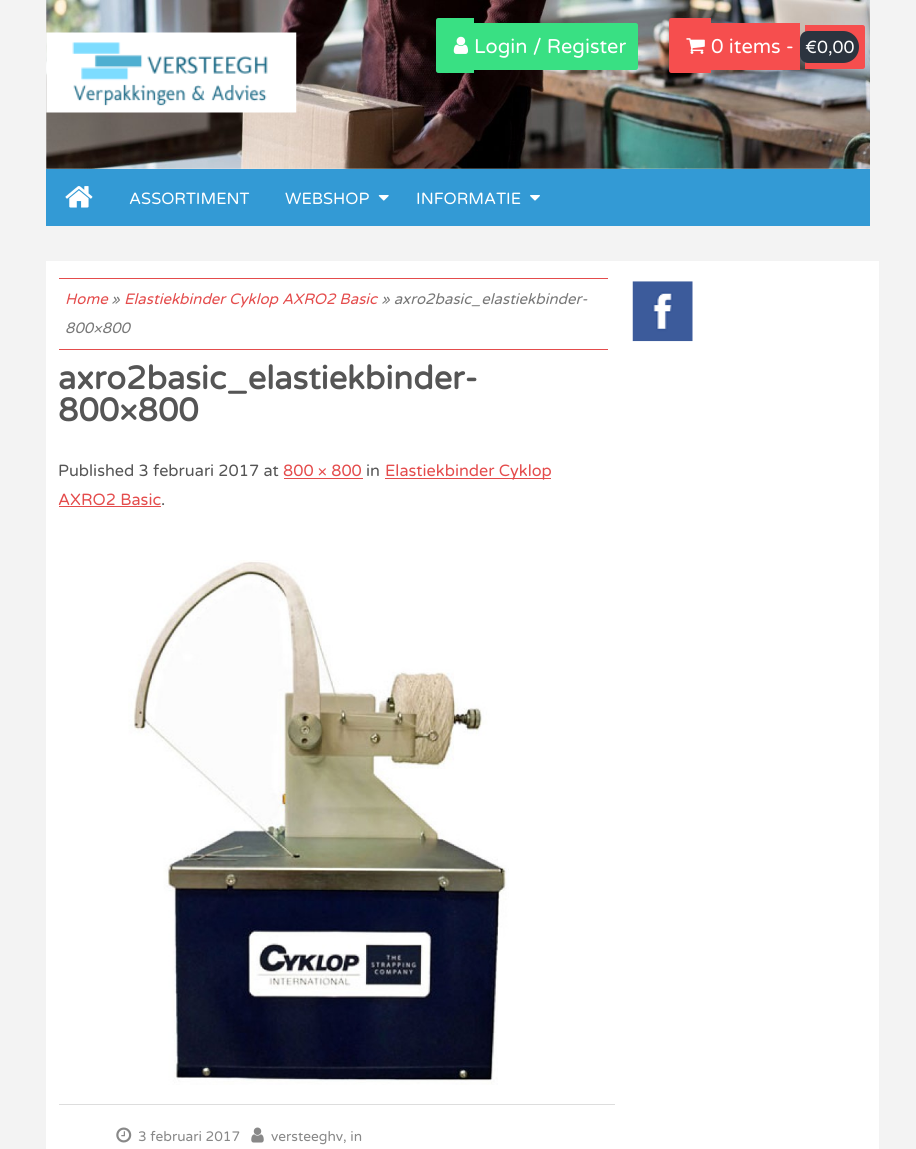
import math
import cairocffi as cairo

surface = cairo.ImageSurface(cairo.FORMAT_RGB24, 916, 1149)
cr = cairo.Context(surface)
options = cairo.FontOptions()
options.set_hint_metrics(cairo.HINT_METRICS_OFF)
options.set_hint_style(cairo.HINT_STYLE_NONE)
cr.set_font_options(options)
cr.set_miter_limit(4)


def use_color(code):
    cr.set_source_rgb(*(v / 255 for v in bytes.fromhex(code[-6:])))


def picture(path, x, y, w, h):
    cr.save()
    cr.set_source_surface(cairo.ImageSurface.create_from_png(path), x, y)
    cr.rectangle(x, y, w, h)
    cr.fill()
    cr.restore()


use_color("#f3f3f3")
cr.paint()
picture("img1.png", 46, 0, 824, 169)
picture("img2.png", 46, 32, 251, 81)
use_color("#39e083")
cr.new_path()
cr.move_to(438.5, 18)
cr.line_to(474, 18)
cr.line_to(474, 73)
cr.line_to(438.5, 73)
cr.curve_to(437, 73, 436, 72, 436, 70.5)
cr.line_to(436, 20.5)
cr.curve_to(436, 19, 437, 18, 438.5, 18)
cr.close_path()
cr.fill()
picture("img3.png", 453, 36, 15, 18)
cr.new_path()
cr.move_to(474, 23)
cr.line_to(635.5, 23)
cr.curve_to(637, 23, 638, 24, 638, 25.5)
cr.line_to(638, 67.5)
cr.curve_to(638, 69, 637, 70, 635.5, 70)
cr.line_to(474, 70)
cr.close_path()
cr.fill()
cr.select_font_face("Varela Round")
cr.set_font_size(20)
use_color("#ffffff")
cr.move_to(474, 53)
cr.show_text("Login / Register")
use_color("#f64e4e")
cr.new_path()
cr.move_to(671.5, 18)
cr.line_to(711, 18)
cr.line_to(711, 73)
cr.line_to(671.5, 73)
cr.curve_to(670, 73, 669, 72, 669, 70.5)
cr.line_to(669, 20.5)
cr.curve_to(669, 19, 670, 18, 671.5, 18)
cr.close_path()
cr.fill()
picture("img4.png", 686, 38, 19, 16)
cr.rectangle(711, 23, 89, 47)
cr.fill()
use_color("#ffffff")
cr.move_to(711, 53)
cr.show_text("0 items -")
use_color("#f64e4e")
cr.rectangle(805, 25, 11, 44)
cr.fill()
cr.new_path()
cr.move_to(816, 25)
cr.line_to(862.5, 25)
cr.curve_to(864, 25, 865, 26, 865, 27.5)
cr.line_to(865, 66.5)
cr.curve_to(865, 68, 864, 69, 862.5, 69)
cr.line_to(816, 69)
cr.close_path()
cr.fill()
use_color("#2c343f")
cr.new_path()
cr.move_to(808, 31)
cr.line_to(816, 31)
cr.line_to(816, 63)
cr.line_to(808, 63)
cr.curve_to(803.5, 63, 800, 59.5, 800, 55)
cr.line_to(800, 39)
cr.curve_to(800, 34.5, 803.5, 31, 808, 31)
cr.close_path()
cr.fill()
cr.new_path()
cr.move_to(816, 31)
cr.line_to(843, 31)
cr.curve_to(852, 31, 859, 38, 859, 47)
cr.curve_to(859, 56, 852, 63, 843, 63)
cr.line_to(816, 63)
cr.close_path()
cr.fill()
cr.set_font_size(17.5)
use_color("#ffffff")
cr.move_to(805, 53)
cr.show_text("€0,00")
use_color("#339ad5")
cr.rectangle(46, 169, 824, 57)
cr.fill()
picture("img5.png", 65, 186, 28, 22)
cr.set_font_size(16.25)
use_color("#ffffff")
cr.move_to(129, 204)
cr.show_text("ASSORTIMENT")
cr.move_to(285, 204)
cr.show_text("WEBSHOP")
picture("img6.png", 378, 195, 11, 6)
cr.move_to(416, 204)
cr.show_text("INFORMATIE")
picture("img7.png", 530, 195, 10, 6)
cr.rectangle(46, 261, 833, 888)
cr.fill()
use_color("#e44c4c")
cr.rectangle(59, 278, 549, 1)
cr.fill()
cr.rectangle(59, 349, 549, 1)
cr.fill()
cr.select_font_face("Varela Round", cairo.FONT_SLANT_ITALIC)
cr.set_font_size(15)
cr.move_to(65, 304)
cr.show_text("Home")
use_color("#777777")
cr.move_to(111, 304)
cr.show_text("»")
use_color("#e44c4c")
cr.move_to(124, 304)
cr.show_text("Elastiekbinder Cyklop AXRO2 Basic")
use_color("#777777")
cr.move_to(381, 304)
cr.show_text("» axro2basic_elastiekbinder-")
cr.move_to(65, 333)
cr.show_text("800×800")
cr.select_font_face("Varela Round", cairo.FONT_SLANT_NORMAL, cairo.FONT_WEIGHT_BOLD)
cr.set_font_size(32.5)
use_color("#555555")
cr.move_to(58, 389)
cr.show_text("axro2basic_elastiekbinder-")
cr.move_to(58, 421)
cr.show_text("800×800")
cr.select_font_face("Varela Round")
cr.set_font_size(16.25)
cr.move_to(58, 476)
cr.show_text("Published 3 februari 2017 at")
use_color("#e44c4c")
cr.move_to(283, 476)
cr.show_text("800 × 800")
cr.rectangle(284, 478, 79, 1)
cr.fill()
use_color("#555555")
cr.move_to(366, 476)
cr.show_text("in")
use_color("#e44c4c")
cr.rectangle(385, 478, 166, 1)
cr.fill()
cr.move_to(385, 476)
cr.show_text("Elastiekbinder Cyklop")
cr.move_to(58, 505)
cr.show_text("AXRO2 Basic")
cr.rectangle(59, 506, 102, 1)
cr.fill()
use_color("#555555")
cr.move_to(161, 505)
cr.show_text(".")
picture("img8.png", 128, 560, 381, 525)
use_color("#dddddd")
cr.rectangle(59, 1104, 556, 1)
cr.fill()
picture("img9.png", 116, 1127, 16, 16)
cr.set_font_size(13.75)
use_color("#888888")
cr.move_to(138, 1141)
cr.show_text("3 februari 2017")
picture("img10.png", 251, 1127, 13, 16)
cr.move_to(271, 1141)
cr.show_text("versteeghv, in")
picture("img11.png", 632, 281, 61, 61)
surface.write_to_png("result.png")
